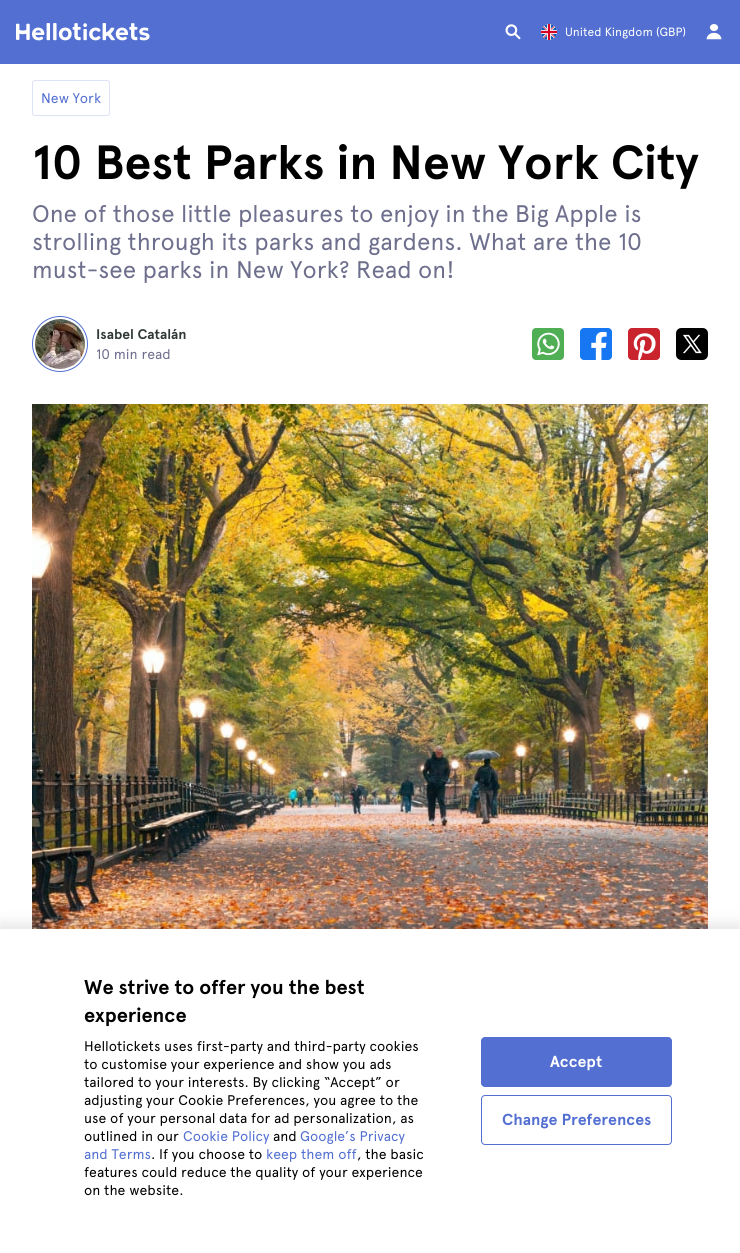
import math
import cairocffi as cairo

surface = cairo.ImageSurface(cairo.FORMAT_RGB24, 740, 1253)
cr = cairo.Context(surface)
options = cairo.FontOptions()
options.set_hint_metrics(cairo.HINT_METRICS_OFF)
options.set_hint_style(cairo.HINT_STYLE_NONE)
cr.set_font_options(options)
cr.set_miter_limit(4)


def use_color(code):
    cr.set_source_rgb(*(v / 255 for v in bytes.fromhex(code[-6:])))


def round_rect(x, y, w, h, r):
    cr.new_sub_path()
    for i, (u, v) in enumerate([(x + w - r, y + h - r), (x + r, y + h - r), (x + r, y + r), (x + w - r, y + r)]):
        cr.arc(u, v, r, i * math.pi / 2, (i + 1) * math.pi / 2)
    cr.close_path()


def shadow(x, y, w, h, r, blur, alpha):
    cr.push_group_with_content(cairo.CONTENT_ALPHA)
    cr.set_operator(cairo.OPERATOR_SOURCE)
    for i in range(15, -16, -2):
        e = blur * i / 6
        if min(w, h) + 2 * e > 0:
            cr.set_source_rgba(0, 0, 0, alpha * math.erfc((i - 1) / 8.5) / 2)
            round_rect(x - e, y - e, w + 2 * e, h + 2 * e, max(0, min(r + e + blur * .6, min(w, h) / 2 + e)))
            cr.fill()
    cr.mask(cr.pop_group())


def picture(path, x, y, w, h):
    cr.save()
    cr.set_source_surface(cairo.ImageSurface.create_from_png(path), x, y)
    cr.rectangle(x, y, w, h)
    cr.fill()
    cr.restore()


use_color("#ffffff")
cr.paint()
use_color("#526fd1")
cr.rectangle(0, 0, 740, 64)
cr.fill()
picture("img1.png", 16, 23, 134, 18)
picture("img2.png", 505, 24, 16, 16)
picture("img3.png", 541, 24, 16, 16)
cr.select_font_face("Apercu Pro")
cr.set_font_size(12)
use_color("#ffffff")
cr.move_to(565, 36)
cr.show_text("United Kingdom (GBP)")
picture("img4.png", 706, 24, 16, 16)
round_rect(32.5, 80.5, 77, 35, 2.5)
use_color("#dee2f7")
cr.set_line_width(1)
cr.stroke()
cr.set_font_size(14)
use_color("#526fd1")
cr.move_to(41, 103)
cr.show_text("New York")
cr.select_font_face("Apercu Pro", cairo.FONT_SLANT_NORMAL, cairo.FONT_WEIGHT_BOLD)
cr.set_font_size(48)
use_color("#000000")
cr.move_to(32, 179)
cr.show_text("10 Best Parks in New York City")
cr.select_font_face("Apercu Pro")
cr.set_font_size(24)
use_color("#6e6f8d")
cr.move_to(32, 222)
cr.show_text("One of those little pleasures to enjoy in the Big Apple is")
cr.move_to(32, 250)
cr.show_text("strolling through its parks and gardens. What are the 10")
cr.move_to(32, 278)
cr.show_text("must-see parks in New York? Read on!")
cr.new_path()
cr.arc(60, 344, 27.5, 0, 2 * math.pi)
use_color("#526fd1")
cr.stroke()
picture("img5.png", 35, 319, 50, 50)
cr.select_font_face("Apercu Pro", cairo.FONT_SLANT_NORMAL, cairo.FONT_WEIGHT_BOLD)
cr.set_font_size(14)
use_color("#303838")
cr.move_to(96, 339)
cr.show_text("Isabel Catalán")
cr.select_font_face("Apercu Pro")
use_color("#6e6f8d")
cr.move_to(96, 359)
cr.show_text("10 min read")
picture("img6.png", 532, 328, 32, 32)
picture("img7.png", 580, 328, 32, 32)
picture("img8.png", 628, 328, 32, 32)
picture("img9.png", 676, 328, 32, 32)
picture("img10.png", 32, 404, 676, 525)
use_color("#000000")
shadow(0, 925, 740, 324, 0, 8, 0.12)
use_color("#ffffff")
cr.rectangle(0, 929, 740, 324)
cr.fill()
cr.select_font_face("Apercu Pro", cairo.FONT_SLANT_NORMAL, cairo.FONT_WEIGHT_BOLD)
cr.set_font_size(20)
use_color("#000000")
cr.move_to(84, 994)
cr.show_text("We strive to offer you the best")
cr.move_to(84, 1022)
cr.show_text("experience")
cr.select_font_face("Apercu Pro")
cr.set_font_size(14)
cr.move_to(84, 1051)
cr.show_text("Hellotickets uses first-party and third-party cookies")
cr.move_to(84, 1069)
cr.show_text("to customise your experience and show you ads")
cr.move_to(84, 1087)
cr.show_text("tailored to your interests. By clicking “Accept” or")
cr.move_to(84, 1105)
cr.show_text("adjusting your Cookie Preferences, you agree to the")
cr.move_to(84, 1123)
cr.show_text("use of your personal data for ad personalization, as")
cr.move_to(84, 1141)
cr.show_text("outlined in our")
use_color("#526fd1")
cr.move_to(183, 1141)
cr.show_text("Cookie Policy")
use_color("#000000")
cr.move_to(273, 1141)
cr.show_text("and")
use_color("#526fd1")
cr.move_to(300, 1141)
cr.show_text("Google’s Privacy")
cr.move_to(84, 1159)
cr.show_text("and Terms")
use_color("#000000")
cr.move_to(151, 1159)
cr.show_text(". If you choose to")
use_color("#526fd1")
cr.move_to(266, 1159)
cr.show_text("keep them off")
use_color("#000000")
cr.move_to(357, 1159)
cr.show_text(", the basic")
cr.move_to(84, 1177)
cr.show_text("features could reduce the quality of your experience")
cr.move_to(84, 1195)
cr.show_text("on the website.")
use_color("#526fd1")
round_rect(481, 1037, 191, 50, 4)
cr.fill()
cr.select_font_face("Apercu Pro", cairo.FONT_SLANT_NORMAL, cairo.FONT_WEIGHT_BOLD)
cr.set_font_size(16)
use_color("#ffffff")
cr.move_to(550, 1067)
cr.show_text("Accept")
round_rect(481.5, 1095.5, 190, 49, 3.5)
use_color("#526fd1")
cr.stroke()
cr.move_to(502, 1125)
cr.show_text("Change Preferences")
surface.write_to_png("result.png")
